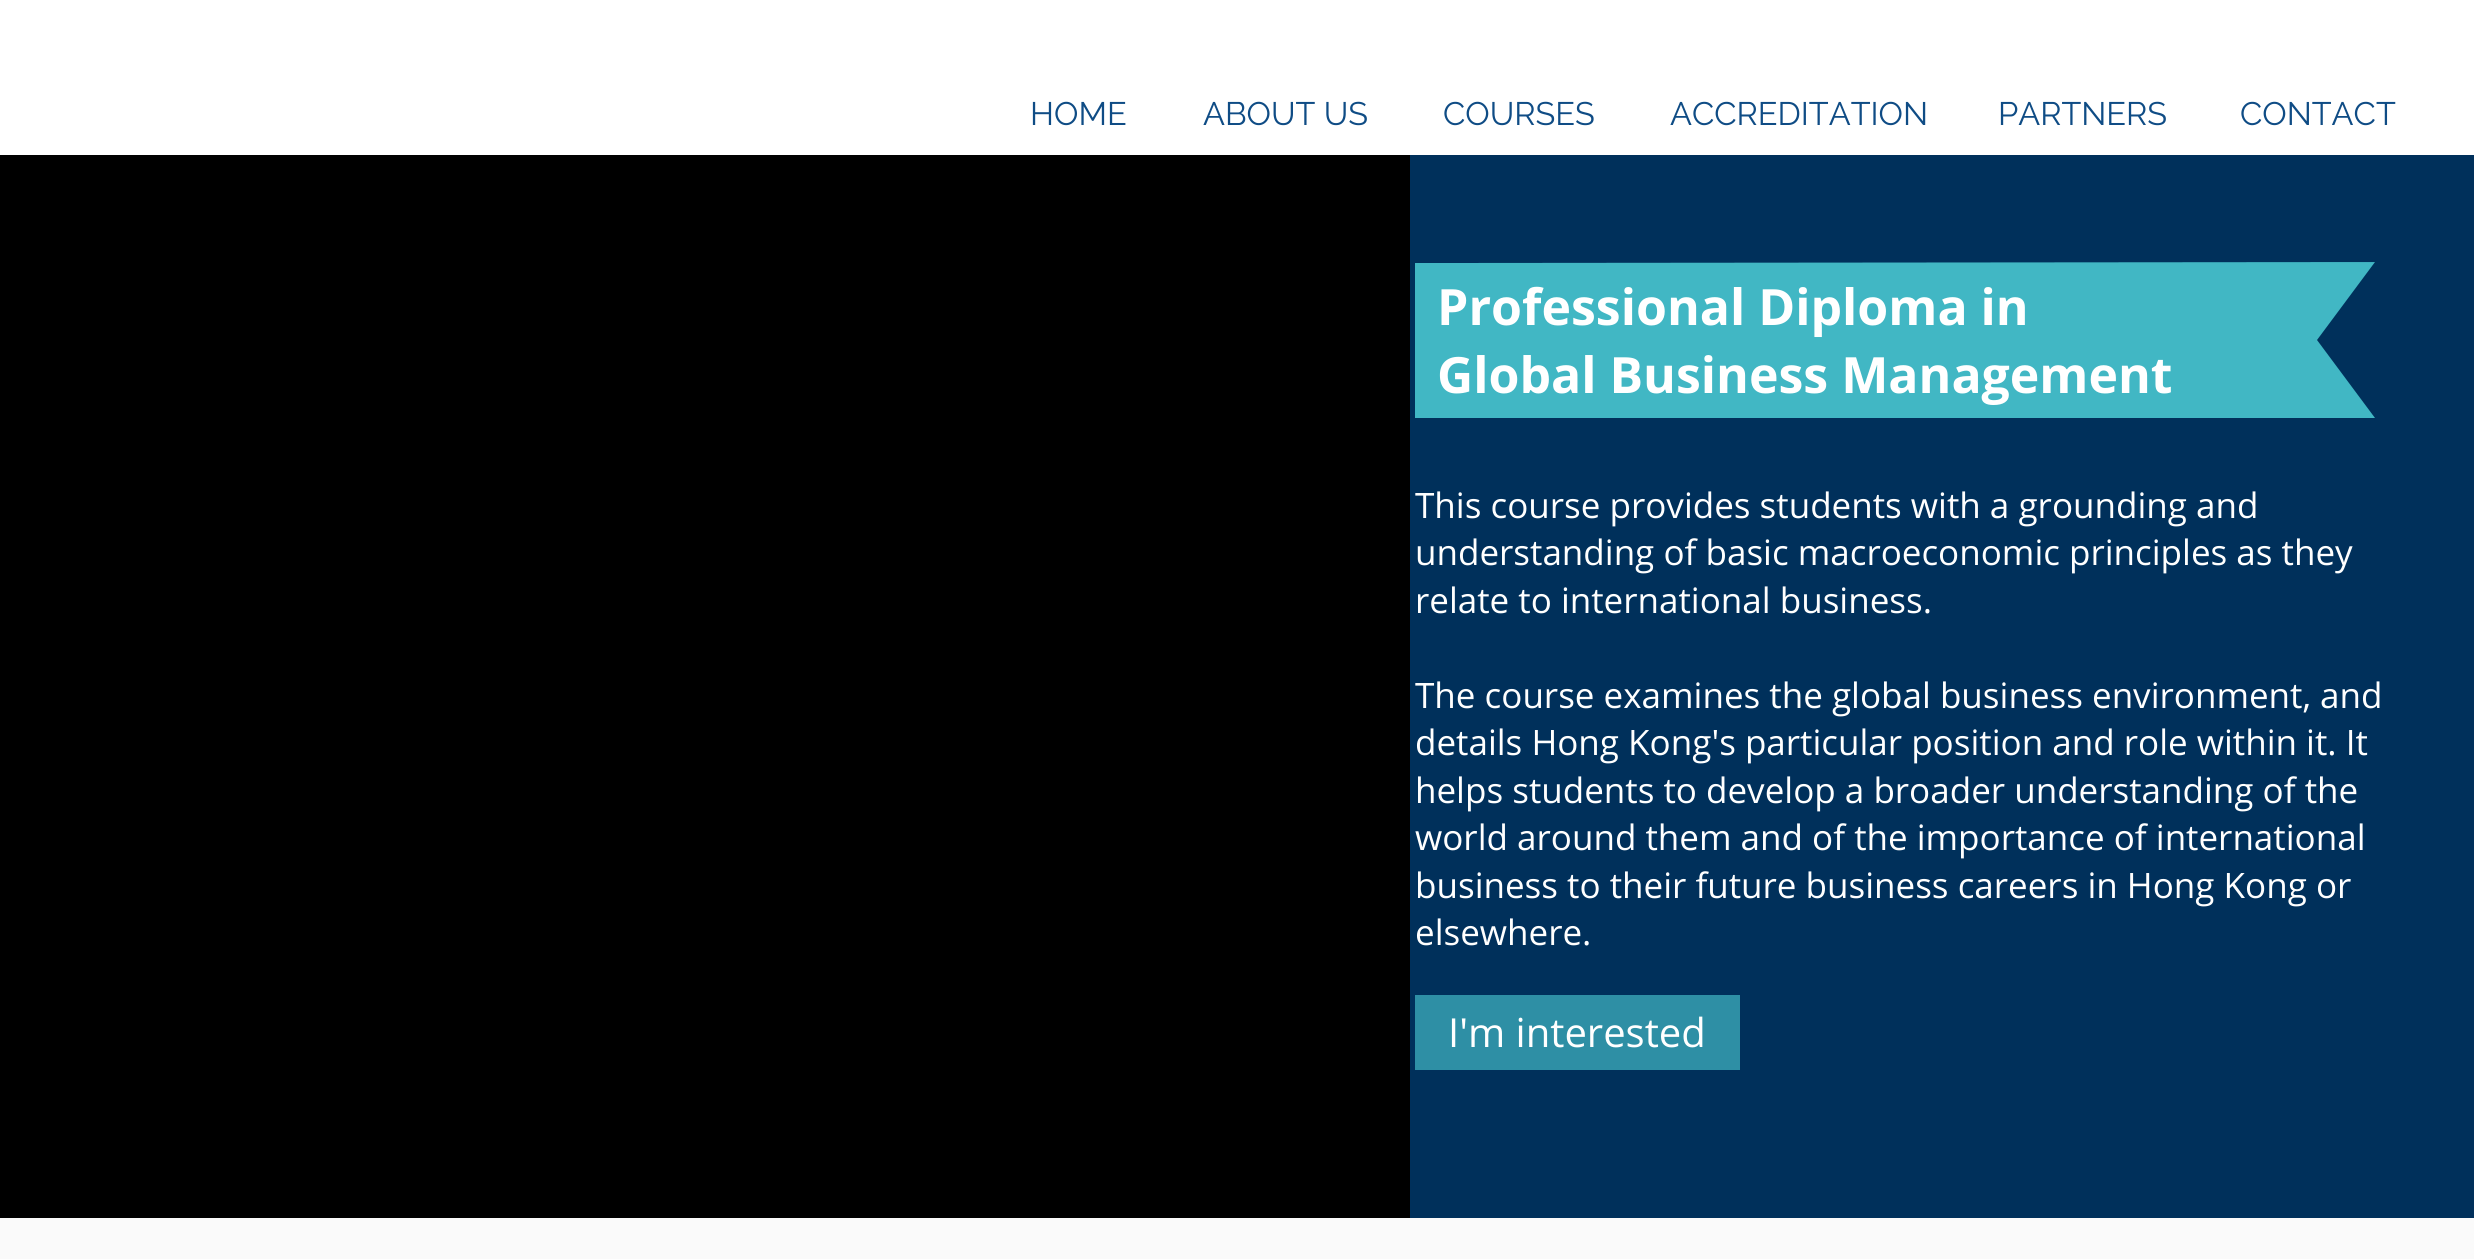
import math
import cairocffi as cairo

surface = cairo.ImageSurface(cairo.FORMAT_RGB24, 2474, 1259)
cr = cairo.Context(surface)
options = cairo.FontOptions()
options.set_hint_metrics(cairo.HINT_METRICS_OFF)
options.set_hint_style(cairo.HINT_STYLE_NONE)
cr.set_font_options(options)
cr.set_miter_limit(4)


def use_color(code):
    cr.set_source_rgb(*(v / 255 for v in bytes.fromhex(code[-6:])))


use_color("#ffffff")
cr.paint()
cr.select_font_face("Raleway")
cr.set_font_size(32.5)
use_color("#0f4c85")
cr.move_to(1030, 125)
cr.show_text("HOME")
cr.move_to(1203, 125)
cr.show_text("ABOUT US")
cr.move_to(1443, 125)
cr.show_text("COURSES")
cr.move_to(1670, 125)
cr.show_text("ACCREDITATION")
cr.move_to(1998, 125)
cr.show_text("PARTNERS")
cr.move_to(2240, 125)
cr.show_text("CONTACT")
use_color("#000000")
cr.rectangle(0, 155, 1410, 1063)
cr.fill()
use_color("#00305b")
cr.rectangle(1410, 155, 1064, 1063)
cr.fill()
use_color("#41b7c4")
cr.new_path()
cr.move_to(2375, 262)
cr.line_to(1415, 263)
cr.line_to(1415, 418)
cr.line_to(2375, 418)
cr.line_to(2317, 340)
cr.close_path()
cr.fill()
cr.select_font_face("Open Sans", cairo.FONT_SLANT_NORMAL, cairo.FONT_WEIGHT_BOLD)
cr.set_font_size(50)
use_color("#ffffff")
cr.move_to(1437, 325)
cr.show_text("Professional Diploma in")
cr.move_to(1437, 393)
cr.show_text("Global Business Management")
cr.select_font_face("Open Sans")
cr.set_font_size(35)
cr.move_to(1415, 518)
cr.show_text("This course provides students with a grounding and")
cr.move_to(1415, 565)
cr.show_text("understanding of basic macroeconomic principles as they")
cr.move_to(1415, 613)
cr.show_text("relate to international business.")
cr.move_to(1415, 708)
cr.show_text("The course examines the global business environment, and")
cr.move_to(1415, 755)
cr.show_text("details Hong Kong's particular position and role within it. It")
cr.move_to(1415, 803)
cr.show_text("helps students to develop a broader understanding of the")
cr.move_to(1415, 850)
cr.show_text("world around them and of the importance of international")
cr.move_to(1415, 898)
cr.show_text("business to their future business careers in Hong Kong or")
cr.move_to(1415, 945)
cr.show_text("elsewhere.")
use_color("#2e8fa5")
cr.rectangle(1415, 995, 325, 75)
cr.fill()
cr.set_font_size(40)
use_color("#ffffff")
cr.move_to(1448, 1047)
cr.show_text("I'm interested")
use_color("#fafafa")
cr.rectangle(0, 1218, 2474, 41)
cr.fill()
surface.write_to_png("result.png")
